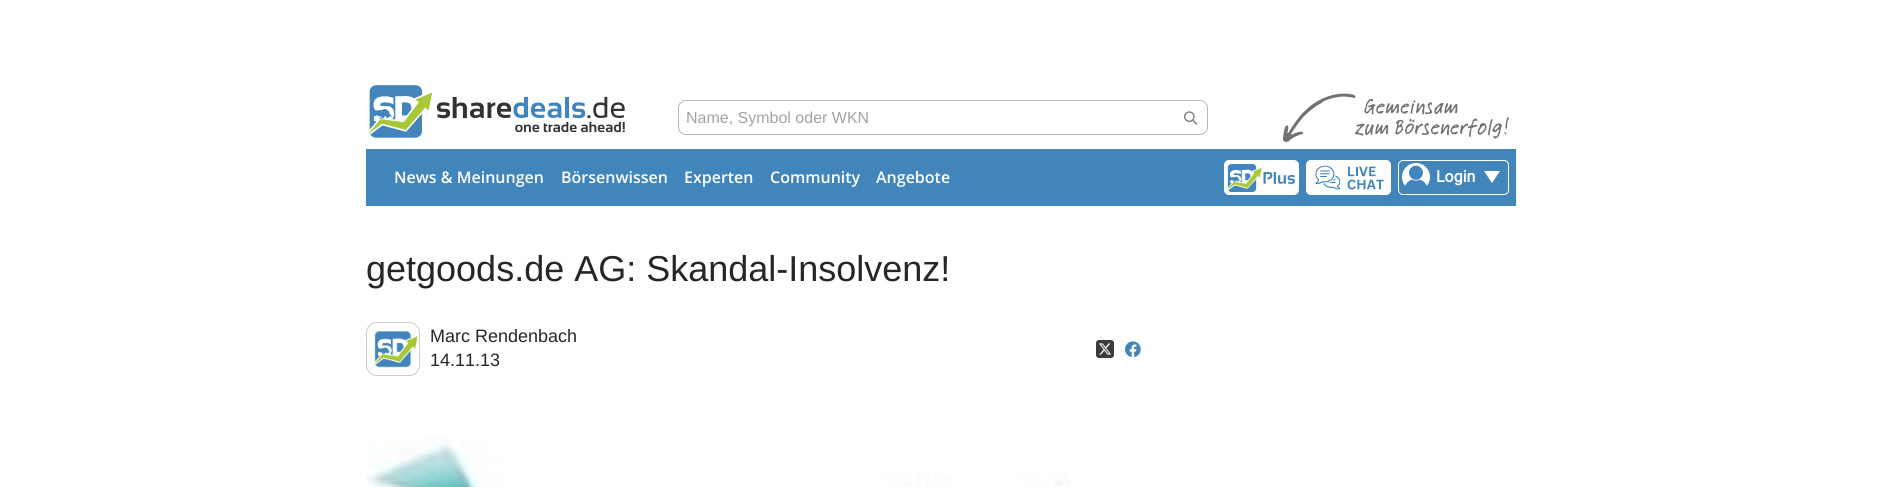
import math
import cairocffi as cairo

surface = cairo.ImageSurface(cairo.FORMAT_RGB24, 1881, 487)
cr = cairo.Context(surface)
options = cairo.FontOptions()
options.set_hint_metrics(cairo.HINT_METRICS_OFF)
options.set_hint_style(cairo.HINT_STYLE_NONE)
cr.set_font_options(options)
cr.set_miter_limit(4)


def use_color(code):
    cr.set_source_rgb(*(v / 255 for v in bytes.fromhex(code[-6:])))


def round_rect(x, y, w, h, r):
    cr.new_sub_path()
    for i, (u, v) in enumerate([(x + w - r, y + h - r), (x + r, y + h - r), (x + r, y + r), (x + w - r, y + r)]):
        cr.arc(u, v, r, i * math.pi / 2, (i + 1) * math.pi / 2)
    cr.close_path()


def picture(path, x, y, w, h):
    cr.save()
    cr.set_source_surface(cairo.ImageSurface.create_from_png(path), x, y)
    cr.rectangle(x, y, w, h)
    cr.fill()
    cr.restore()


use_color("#ffffff")
cr.paint()
picture("img1.png", 368, 85, 257, 53)
round_rect(678.5, 100.5, 529, 34, 7.5)
use_color("#b4b8b8")
cr.set_line_width(1)
cr.stroke()
cr.select_font_face("Liberation Sans")
cr.set_font_size(16)
use_color("#a3a3a3")
cr.move_to(686, 123)
cr.show_text("Name, Symbol oder WKN")
picture("img2.png", 1184, 111, 14, 14)
picture("img3.png", 1282, 93, 74, 49)
picture("img4.png", 1355, 99, 154, 40)
use_color("#4285bb")
cr.rectangle(366, 149, 1150, 57)
cr.fill()
cr.select_font_face("Open Sans SemiBold")
use_color("#ffffff")
cr.move_to(394, 183)
cr.show_text("News & Meinungen")
cr.move_to(561, 183)
cr.show_text("Börsenwissen")
cr.move_to(684, 183)
cr.show_text("Experten")
cr.move_to(770, 183)
cr.show_text("Community")
cr.move_to(876, 183)
cr.show_text("Angebote")
round_rect(1224, 160, 75, 35, 5)
cr.fill()
picture("img5.png", 1227, 164, 68, 28)
use_color("#fefefd")
round_rect(1306.5, 160.5, 84, 34, 4.5)
cr.fill_preserve()
use_color("#ffffff")
cr.stroke()
picture("img6.png", 1315, 165, 69, 25)
round_rect(1398.5, 160.5, 110, 34, 4.5)
cr.stroke()
cr.arc(1416, 177, 14, 0, 2 * math.pi)
cr.fill()
picture("img7.png", 1405, 165, 22, 26)
cr.select_font_face("Roboto", cairo.FONT_SLANT_NORMAL, cairo.FONT_WEIGHT_BOLD)
cr.move_to(1436, 182)
cr.show_text("Login")
cr.new_path()
cr.move_to(1484, 171)
cr.line_to(1500, 171)
cr.line_to(1492, 183)
cr.close_path()
cr.fill()
cr.select_font_face("Liberation Sans")
cr.set_font_size(36)
use_color("#262626")
cr.move_to(366, 281)
cr.show_text("getgoods.de AG: Skandal-Insolvenz!")
picture("img8.png", 373, 330, 45, 38)
round_rect(366.5, 322.5, 53, 53, 10.5)
use_color("#cccccc")
cr.stroke()
cr.set_font_size(18)
use_color("#262626")
cr.move_to(430, 342)
cr.show_text("Marc Rendenbach")
cr.move_to(430, 366)
cr.show_text("14.11.13")
picture("img9.png", 1096, 340, 18, 18)
picture("img10.png", 1125, 341, 16, 16)
picture("img11.png", 366, 438, 705, 49)
surface.write_to_png("result.png")
